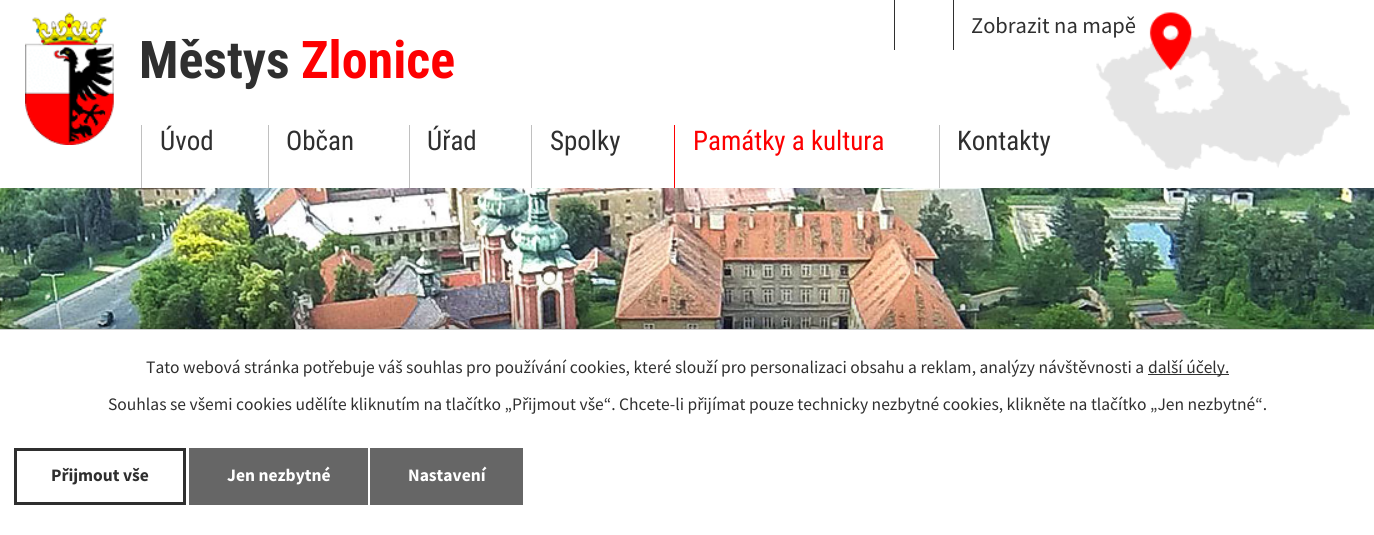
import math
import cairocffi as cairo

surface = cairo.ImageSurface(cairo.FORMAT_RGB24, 1374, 535)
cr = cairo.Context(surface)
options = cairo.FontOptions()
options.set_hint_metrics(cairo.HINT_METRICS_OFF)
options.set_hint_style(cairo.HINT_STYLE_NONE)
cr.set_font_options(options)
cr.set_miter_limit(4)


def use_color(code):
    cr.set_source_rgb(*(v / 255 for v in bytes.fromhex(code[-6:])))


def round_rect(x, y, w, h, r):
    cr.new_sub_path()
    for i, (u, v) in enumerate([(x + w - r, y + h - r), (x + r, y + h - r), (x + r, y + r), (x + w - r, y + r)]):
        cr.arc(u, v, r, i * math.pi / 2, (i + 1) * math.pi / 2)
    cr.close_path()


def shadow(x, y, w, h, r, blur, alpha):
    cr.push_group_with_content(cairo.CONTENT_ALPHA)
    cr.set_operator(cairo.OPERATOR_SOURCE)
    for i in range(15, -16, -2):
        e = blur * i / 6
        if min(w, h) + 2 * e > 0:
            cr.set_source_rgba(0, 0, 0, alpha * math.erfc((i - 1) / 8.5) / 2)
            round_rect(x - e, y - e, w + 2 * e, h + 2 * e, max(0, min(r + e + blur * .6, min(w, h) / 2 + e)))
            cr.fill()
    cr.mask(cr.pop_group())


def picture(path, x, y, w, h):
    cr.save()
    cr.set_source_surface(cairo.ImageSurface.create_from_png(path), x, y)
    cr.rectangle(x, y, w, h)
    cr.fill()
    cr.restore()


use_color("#ffffff")
cr.paint()
picture("img1.png", 0, 188, 1374, 141)
use_color("#2f2f2f")
cr.rectangle(894, 0, 1, 50)
cr.fill()
cr.rectangle(953, 0, 1, 50)
cr.fill()
cr.select_font_face("Source Sans Pro")
cr.set_font_size(22.5)
cr.move_to(971, 33)
cr.show_text("Zobrazit na mapě")
picture("img2.png", 1096, 12, 254, 158)
picture("img3.png", 25, 12, 89, 133)
cr.select_font_face("Roboto Condensed", cairo.FONT_SLANT_NORMAL, cairo.FONT_WEIGHT_BOLD)
cr.set_font_size(52)
cr.move_to(139, 78)
cr.show_text("Městys")
use_color("#fd0001")
cr.move_to(301, 78)
cr.show_text("Zlonice")
use_color("#c0c0c0")
cr.rectangle(141, 125, 1, 63)
cr.fill()
cr.select_font_face("Roboto Condensed")
cr.set_font_size(27)
use_color("#2f2f2f")
cr.move_to(160, 150)
cr.show_text("Úvod")
use_color("#c0c0c0")
cr.rectangle(268, 125, 1, 63)
cr.fill()
use_color("#2f2f2f")
cr.move_to(286, 150)
cr.show_text("Občan")
use_color("#c0c0c0")
cr.rectangle(409, 125, 1, 63)
cr.fill()
use_color("#2f2f2f")
cr.move_to(427, 150)
cr.show_text("Úřad")
use_color("#c0c0c0")
cr.rectangle(531, 125, 1, 63)
cr.fill()
use_color("#2f2f2f")
cr.move_to(550, 150)
cr.show_text("Spolky")
use_color("#fd0001")
cr.rectangle(674, 125, 1, 63)
cr.fill()
cr.move_to(693, 150)
cr.show_text("Památky a kultura")
use_color("#c0c0c0")
cr.rectangle(939, 125, 1, 63)
cr.fill()
use_color("#2f2f2f")
cr.move_to(957, 150)
cr.show_text("Kontakty")
use_color("#000000")
shadow(0, 329, 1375, 206, 0, 3, 0.2)
use_color("#ffffff")
cr.rectangle(0, 330, 1374, 205)
cr.fill()
use_color("#cccccc")
cr.rectangle(0, 329, 1374, 1)
cr.fill()
cr.select_font_face("Source Sans Pro")
cr.set_font_size(17.5)
use_color("#2f2f2f")
cr.move_to(146, 373)
cr.show_text("Tato webová stránka potřebuje váš souhlas pro používání cookies, které slouží pro personalizaci obsahu a reklam, analýzy návštěvnosti a")
use_color("#333333")
cr.rectangle(1148, 374, 81, 1)
cr.fill()
use_color("#2f2f2f")
cr.move_to(1148, 373)
cr.show_text("další účely.")
cr.move_to(108, 410)
cr.show_text("Souhlas se všemi cookies udělíte kliknutím na tlačítko „Přijmout vše“. Chcete-li přijímat pouze technicky nezbytné cookies, klikněte na tlačítko „Jen nezbytné“.")
cr.rectangle(15.5, 449.5, 169, 54)
cr.set_line_width(3)
cr.stroke()
cr.select_font_face("Source Sans Pro", cairo.FONT_SLANT_NORMAL, cairo.FONT_WEIGHT_BOLD)
cr.move_to(51, 481)
cr.show_text("Přijmout vše")
use_color("#666666")
cr.rectangle(189, 448, 179, 57)
cr.fill()
use_color("#ffffff")
cr.move_to(227, 481)
cr.show_text("Jen nezbytné")
use_color("#666666")
cr.rectangle(370, 448, 153, 57)
cr.fill()
use_color("#ffffff")
cr.move_to(408, 481)
cr.show_text("Nastavení")
surface.write_to_png("result.png")
